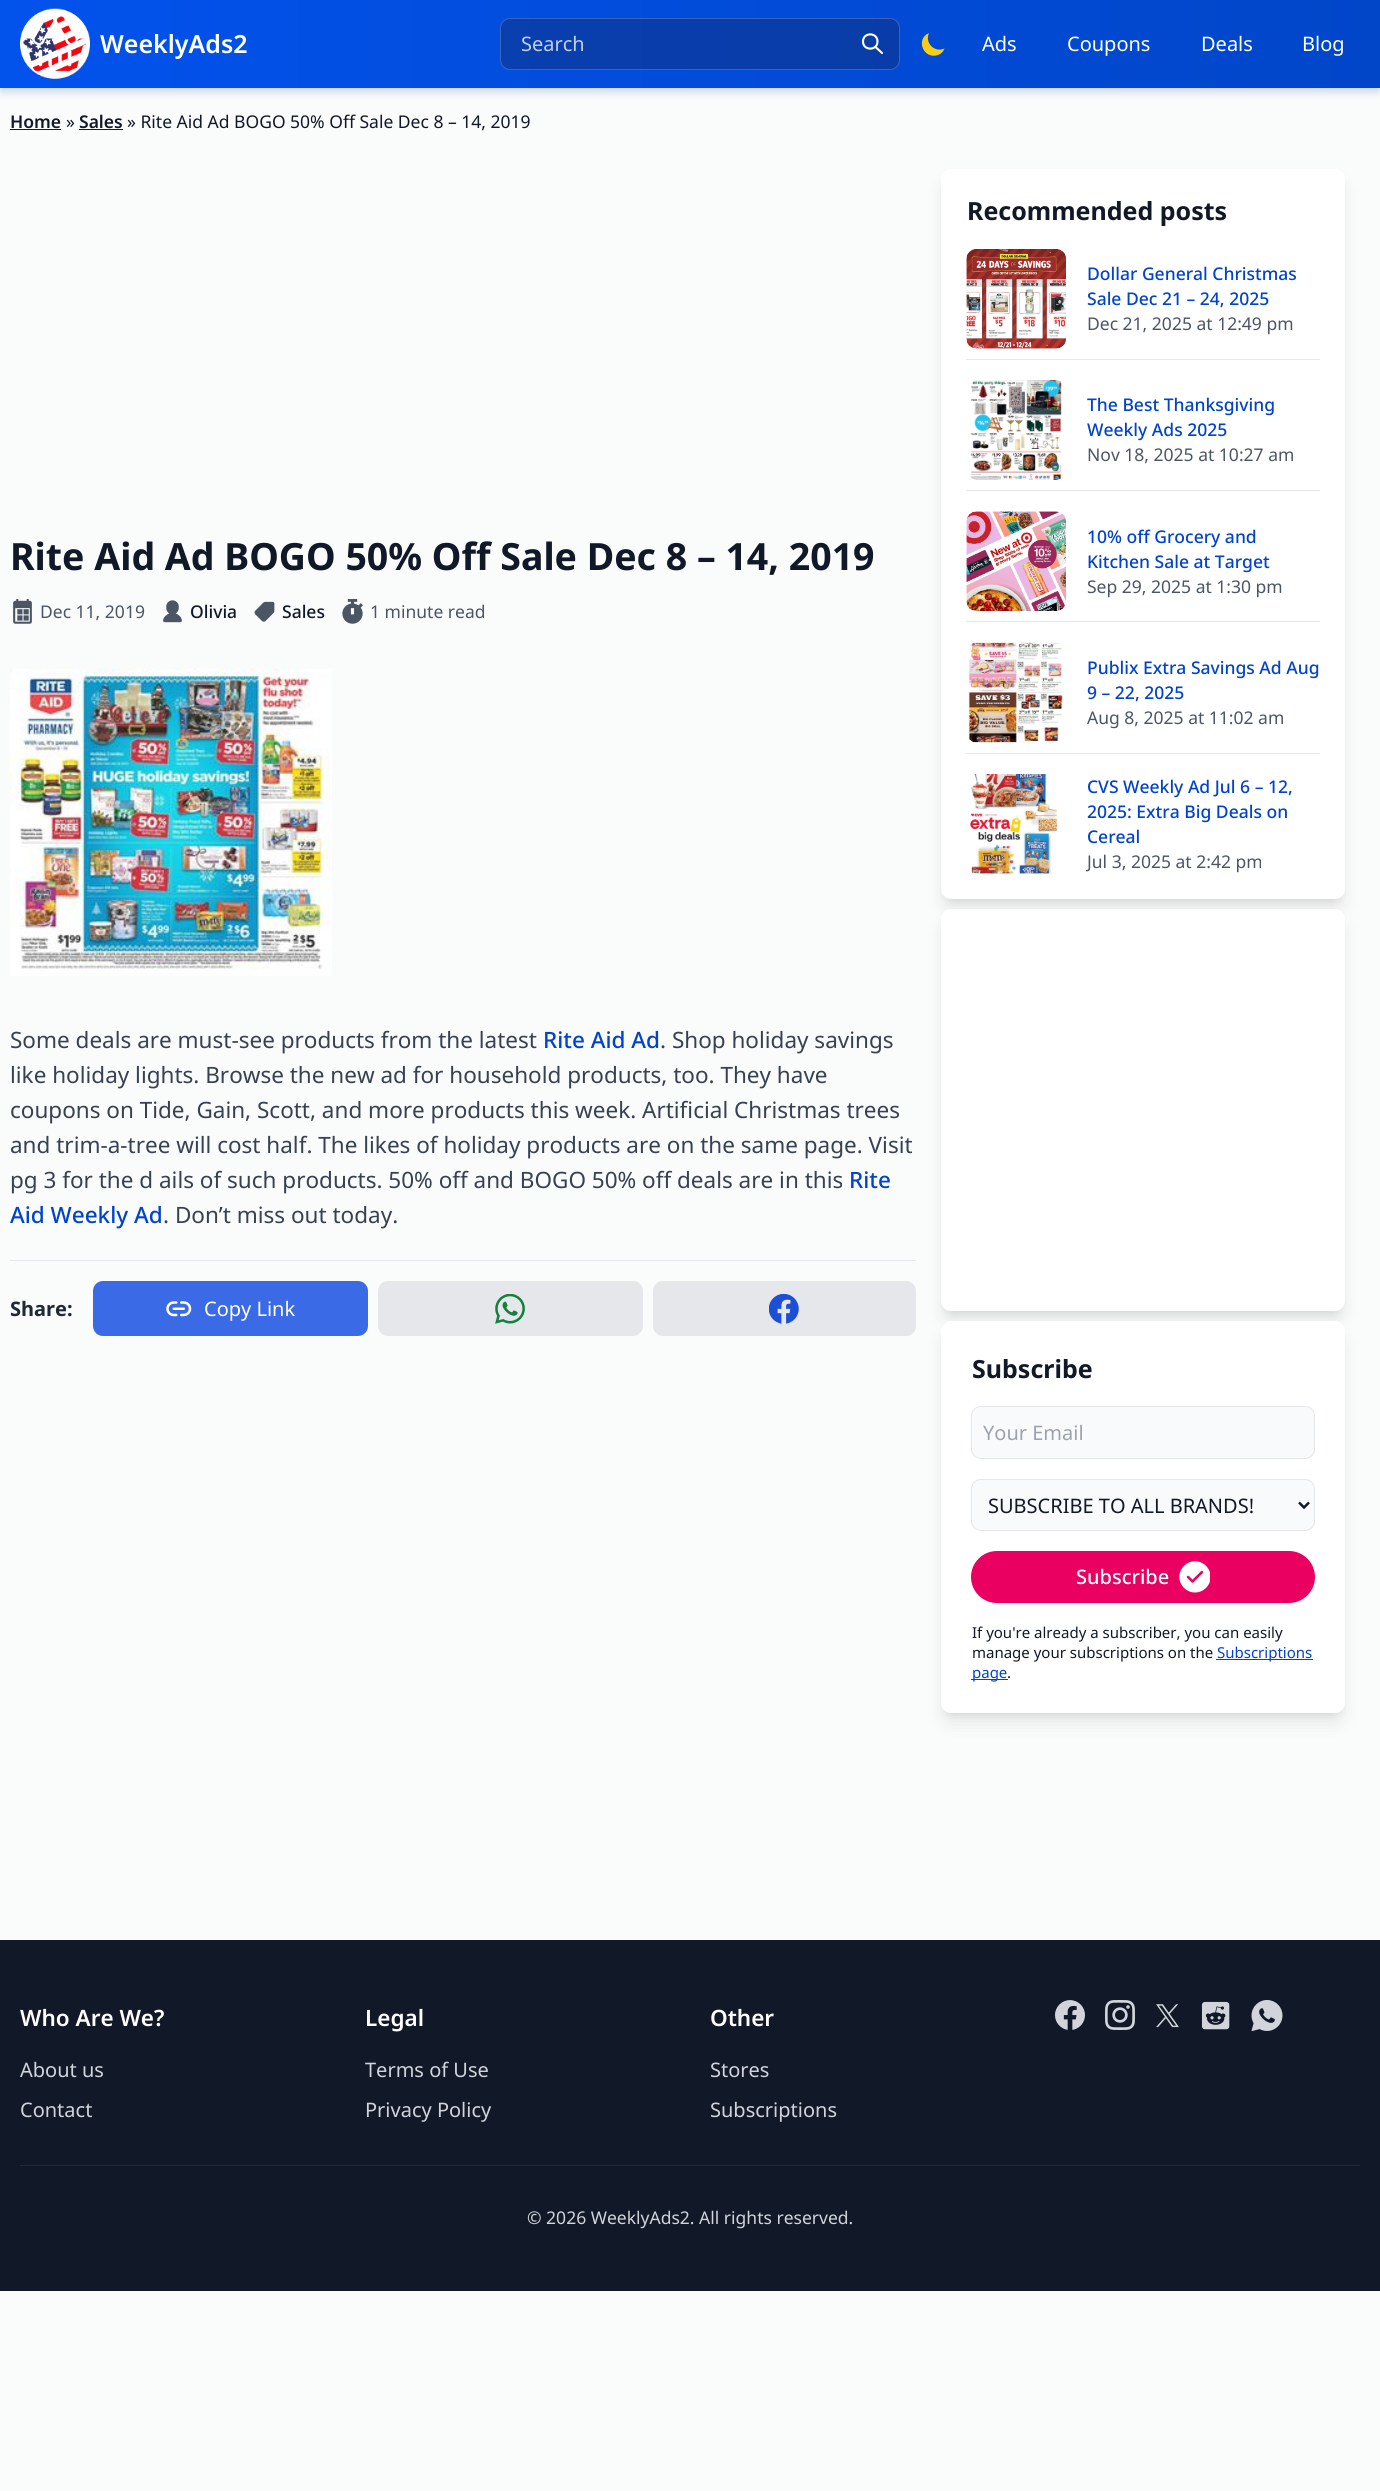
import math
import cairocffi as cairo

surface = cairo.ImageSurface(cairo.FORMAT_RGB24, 1380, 2491)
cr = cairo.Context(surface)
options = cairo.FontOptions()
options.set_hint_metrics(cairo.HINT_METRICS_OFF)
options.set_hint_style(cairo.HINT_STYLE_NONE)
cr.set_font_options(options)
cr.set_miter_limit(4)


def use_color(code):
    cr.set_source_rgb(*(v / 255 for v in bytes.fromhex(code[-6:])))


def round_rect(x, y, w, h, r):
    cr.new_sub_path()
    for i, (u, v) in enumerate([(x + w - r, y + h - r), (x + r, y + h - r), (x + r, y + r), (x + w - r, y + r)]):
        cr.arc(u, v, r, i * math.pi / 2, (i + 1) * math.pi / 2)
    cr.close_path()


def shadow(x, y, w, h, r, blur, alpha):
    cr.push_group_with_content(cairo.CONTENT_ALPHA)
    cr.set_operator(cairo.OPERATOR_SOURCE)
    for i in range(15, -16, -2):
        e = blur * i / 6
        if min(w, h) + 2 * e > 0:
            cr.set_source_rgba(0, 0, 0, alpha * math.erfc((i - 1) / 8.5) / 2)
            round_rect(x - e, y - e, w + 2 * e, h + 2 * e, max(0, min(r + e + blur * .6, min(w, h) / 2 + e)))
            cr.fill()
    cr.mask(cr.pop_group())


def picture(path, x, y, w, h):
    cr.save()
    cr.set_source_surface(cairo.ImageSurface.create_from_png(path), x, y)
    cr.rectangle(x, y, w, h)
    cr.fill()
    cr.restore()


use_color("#fafbfb")
cr.paint()
use_color("#0e418c")
shadow(1, 4, 1378, 85, 0, 2.5, 0.1)
shadow(1, 8, 1378, 85, 0, 4, 0.15)
gradient = cairo.LinearGradient(0, 44, 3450, 44)
gradient.add_color_stop_rgba(0, 0.008, 0.322, 0.925, 1)
gradient.add_color_stop_rgba(0.5, 0.004, 0.263, 0.753, 1)
gradient.add_color_stop_rgba(1, 0.004, 0.204, 0.58, 1)
cr.set_source(gradient)
cr.rectangle(0, 0, 1380, 88)
cr.fill()
picture("img1.png", 20, 8, 70, 71)
cr.select_font_face("Noto Sans SemiBold")
cr.set_font_size(25)
use_color("#ffffff")
cr.move_to(100, 53)
cr.show_text("WeeklyAds2")
cr.set_source_rgba(0.09, 0.145, 0.329, 0.35)
round_rect(500, 18, 400, 52, 10)
cr.fill()
round_rect(500.5, 18.5, 399, 51, 9.5)
cr.set_source_rgba(1, 1, 1, 0.2)
cr.set_line_width(1)
cr.stroke()
cr.select_font_face("Noto Sans")
cr.set_font_size(20)
use_color("#c2cfeb")
cr.move_to(521, 51)
cr.show_text("Search")
cr.new_path()
cr.move_to(882, 53)
cr.line_to(875.5, 47)
cr.move_to(877.5, 41.5)
cr.curve_to(877.5, 51, 863, 51, 863, 41.5)
cr.curve_to(863, 32, 877.5, 32, 877.5, 41.5)
cr.close_path()
use_color("#ffffff")
cr.set_line_width(2.1)
cr.set_line_cap(cairo.LINE_CAP_ROUND)
cr.set_line_join(cairo.LINE_JOIN_ROUND)
cr.stroke()
use_color("#facc15")
cr.new_path()
cr.move_to(944.5, 48.5)
cr.curve_to(934.5, 53, 924.5, 43, 929, 33)
cr.curve_to(915, 39, 923.5, 60, 938, 55)
cr.curve_to(941, 54, 943.5, 51.5, 944.5, 48.5)
cr.close_path()
cr.fill()
use_color("#ffffff")
cr.move_to(982, 51)
cr.show_text("Ads")
cr.move_to(1067, 51)
cr.show_text("Coupons")
cr.move_to(1201, 51)
cr.show_text("Deals")
cr.move_to(1302, 51)
cr.show_text("Blog")
cr.select_font_face("Noto Sans SemiBold")
cr.set_font_size(17.5)
use_color("#111827")
cr.move_to(10, 128)
cr.show_text("Home")
cr.rectangle(10, 129, 51, 1)
cr.fill()
cr.select_font_face("Noto Sans")
cr.move_to(66, 128)
cr.show_text("»")
cr.select_font_face("Noto Sans SemiBold")
cr.move_to(79, 128)
cr.show_text("Sales")
cr.rectangle(79, 129, 44, 1)
cr.fill()
cr.select_font_face("Noto Sans")
cr.move_to(127, 128)
cr.show_text("» Rite Aid Ad BOGO 50% Off Sale Dec 8 – 14, 2019")
cr.select_font_face("Noto Sans", cairo.FONT_SLANT_NORMAL, cairo.FONT_WEIGHT_BOLD)
cr.set_font_size(37.5)
cr.move_to(10, 570)
cr.show_text("Rite Aid Ad BOGO 50% Off Sale Dec 8 – 14, 2019")
picture("img2.png", 13, 599, 19, 25)
cr.select_font_face("Noto Sans")
cr.set_font_size(17.5)
use_color("#4b5563")
cr.move_to(40, 618)
cr.show_text("Dec 11, 2019")
picture("img3.png", 163, 600, 19, 23)
cr.select_font_face("Noto Sans Medium")
use_color("#111827")
cr.move_to(190, 618)
cr.show_text("Olivia")
picture("img4.png", 254, 601, 21, 21)
cr.move_to(282, 618)
cr.show_text("Sales")
picture("img5.png", 342, 599, 21, 25)
cr.select_font_face("Noto Sans")
use_color("#4b5563")
cr.move_to(370, 618)
cr.show_text("1 minute read")
picture("img6.png", 10, 668, 322, 308)
cr.set_font_size(22.5)
use_color("#374151")
cr.move_to(10, 1048)
cr.show_text("Some deals are must-see products from the latest")
cr.select_font_face("Noto Sans Medium")
use_color("#0143cc")
cr.move_to(543, 1048)
cr.show_text("Rite Aid Ad")
cr.select_font_face("Noto Sans")
use_color("#374151")
cr.move_to(660, 1048)
cr.show_text(". Shop holiday savings")
cr.move_to(10, 1083)
cr.show_text("like holiday lights. Browse the new ad for household products, too. They have")
cr.move_to(10, 1118)
cr.show_text("coupons on Tide, Gain, Scott, and more products this week. Artificial Christmas trees")
cr.move_to(10, 1153)
cr.show_text("and trim-a-tree will cost half. The likes of holiday products are on the same page. Visit")
cr.move_to(10, 1188)
cr.show_text("pg 3 for the d ails of such products. 50% off and BOGO 50% off deals are in this")
cr.select_font_face("Noto Sans Medium")
use_color("#0143cc")
cr.move_to(849, 1188)
cr.show_text("Rite")
cr.move_to(10, 1223)
cr.show_text("Aid Weekly Ad")
cr.select_font_face("Noto Sans")
use_color("#374151")
cr.move_to(163, 1223)
cr.show_text(". Don’t miss out today.")
use_color("#e5e7eb")
cr.rectangle(10, 1260, 906, 1)
cr.fill()
cr.select_font_face("Noto Sans", cairo.FONT_SLANT_NORMAL, cairo.FONT_WEIGHT_BOLD)
cr.set_font_size(20)
use_color("#1f2937")
cr.move_to(10, 1316)
cr.show_text("Share:")
use_color("#3a6ae6")
round_rect(93, 1281, 275, 55, 10)
cr.fill()
picture("img7.png", 166, 1301, 26, 16)
cr.select_font_face("Noto Sans")
use_color("#ffffff")
cr.move_to(204, 1316)
cr.show_text("Copy Link")
use_color("#e5e7eb")
round_rect(378, 1281, 265, 55, 10)
cr.fill()
picture("img8.png", 495, 1294, 30, 30)
round_rect(653, 1281, 263, 55, 10)
cr.fill()
picture("img9.png", 769, 1294, 30, 30)
use_color("#000000")
shadow(946, 179, 394, 720, 5, 4, 0.1)
shadow(945, 185, 396, 723, 6, 9.5, 0.1)
use_color("#ffffff")
round_rect(941, 169, 404, 730, 10)
cr.fill()
cr.select_font_face("Noto Sans", cairo.FONT_SLANT_NORMAL, cairo.FONT_WEIGHT_BOLD)
cr.set_font_size(25)
use_color("#111827")
cr.move_to(967, 220)
cr.show_text("Recommended posts")
use_color("#e5e7eb")
cr.rectangle(966, 359, 354, 1)
cr.fill()
picture("img10.png", 966, 249, 100, 100)
cr.select_font_face("Noto Sans Medium")
cr.set_font_size(17.5)
use_color("#0143cc")
cr.move_to(1087, 280)
cr.show_text("Dollar General Christmas")
cr.move_to(1087, 305)
cr.show_text("Sale Dec 21 – 24, 2025")
cr.select_font_face("Noto Sans")
use_color("#4b5563")
cr.move_to(1087, 330)
cr.show_text("Dec 21, 2025 at 12:49 pm")
use_color("#e5e7eb")
cr.rectangle(966, 490, 354, 1)
cr.fill()
picture("img11.png", 970, 380, 92, 100)
cr.select_font_face("Noto Sans Medium")
use_color("#0143cc")
cr.move_to(1087, 411)
cr.show_text("The Best Thanksgiving")
cr.move_to(1087, 436)
cr.show_text("Weekly Ads 2025")
cr.select_font_face("Noto Sans")
use_color("#4b5563")
cr.move_to(1087, 461)
cr.show_text("Nov 18, 2025 at 10:27 am")
use_color("#e5e7eb")
cr.rectangle(966, 621, 354, 1)
cr.fill()
picture("img12.png", 966, 511, 100, 100)
cr.select_font_face("Noto Sans Medium")
use_color("#0143cc")
cr.move_to(1087, 543)
cr.show_text("10% off Grocery and")
cr.move_to(1087, 568)
cr.show_text("Kitchen Sale at Target")
cr.select_font_face("Noto Sans")
use_color("#4b5563")
cr.move_to(1087, 593)
cr.show_text("Sep 29, 2025 at 1:30 pm")
use_color("#e5e7eb")
cr.rectangle(966, 753, 354, 1)
cr.fill()
picture("img13.png", 968, 642, 95, 101)
cr.select_font_face("Noto Sans Medium")
use_color("#0143cc")
cr.move_to(1087, 674)
cr.show_text("Publix Extra Savings Ad Aug")
cr.move_to(1087, 699)
cr.show_text("9 – 22, 2025")
cr.select_font_face("Noto Sans")
use_color("#4b5563")
cr.move_to(1087, 724)
cr.show_text("Aug 8, 2025 at 11:02 am")
picture("img14.png", 970, 774, 88, 100)
cr.select_font_face("Noto Sans Medium")
use_color("#0143cc")
cr.move_to(1087, 793)
cr.show_text("CVS Weekly Ad Jul 6 – 12,")
cr.move_to(1087, 818)
cr.show_text("2025: Extra Big Deals on")
cr.move_to(1087, 843)
cr.show_text("Cereal")
cr.save()
cr.rectangle(1086, 849, 234, 25)
cr.clip()
cr.select_font_face("Noto Sans")
use_color("#4b5563")
cr.move_to(1087, 868)
cr.show_text("Jul 3, 2025 at 2:42 pm")
cr.restore()
use_color("#000000")
shadow(946, 919, 394, 392, 5, 4, 0.1)
shadow(945, 925, 396, 395, 6, 9.5, 0.1)
use_color("#ffffff")
round_rect(941, 909, 404, 402, 10)
cr.fill()
use_color("#000000")
shadow(946, 1331, 394, 382, 5, 4, 0.1)
shadow(945, 1338, 396, 383, 6, 9.5, 0.1)
use_color("#ffffff")
round_rect(941, 1321, 404, 392, 10)
cr.fill()
cr.select_font_face("Noto Sans", cairo.FONT_SLANT_NORMAL, cairo.FONT_WEIGHT_BOLD)
cr.set_font_size(25)
use_color("#111827")
cr.move_to(972, 1378)
cr.show_text("Subscribe")
use_color("#f9fafb")
round_rect(971.5, 1406.5, 343, 52, 9.5)
cr.fill_preserve()
use_color("#e5e7eb")
cr.set_line_width(1)
cr.set_line_cap(cairo.LINE_CAP_BUTT)
cr.set_line_join(cairo.LINE_JOIN_MITER)
cr.stroke()
cr.select_font_face("Noto Sans")
cr.set_font_size(20)
use_color("#9ca3af")
cr.move_to(983, 1440)
cr.show_text("Your Email")
use_color("#f9fafb")
round_rect(971.5, 1479.5, 343, 51, 9.5)
cr.fill_preserve()
use_color("#e5e7eb")
cr.stroke()
cr.new_path()
cr.move_to(1299, 1502.5)
cr.line_to(1304, 1507.5)
cr.line_to(1309, 1502.5)
use_color("#111827")
cr.set_line_width(2.5)
cr.stroke()
cr.move_to(988, 1513)
cr.show_text("SUBSCRIBE TO ALL BRANDS!")
use_color("#ea0061")
round_rect(971, 1551, 344, 52, 26)
cr.fill()
cr.select_font_face("Noto Sans Medium")
use_color("#ffffff")
cr.move_to(1076, 1584)
cr.show_text("Subscribe")
picture("img15.png", 1179, 1561, 31, 32)
cr.select_font_face("Noto Sans")
cr.set_font_size(15)
use_color("#111827")
cr.move_to(972, 1638)
cr.show_text("If you're already a subscriber, you can easily")
cr.move_to(972, 1658)
cr.show_text("manage your subscriptions on the")
use_color("#0143cc")
cr.rectangle(1216, 1659, 97, 1)
cr.fill()
cr.move_to(1217, 1658)
cr.show_text("Subscriptions")
cr.rectangle(971, 1679, 37, 1)
cr.fill()
cr.move_to(972, 1678)
cr.show_text("page")
use_color("#111827")
cr.move_to(1007, 1678)
cr.show_text(".")
cr.rectangle(0, 1940, 1380, 351)
cr.fill()
cr.select_font_face("Noto Sans SemiBold")
cr.set_font_size(22.5)
use_color("#ffffff")
cr.move_to(20, 2026)
cr.show_text("Who Are We?")
cr.select_font_face("Noto Sans")
cr.set_font_size(20)
use_color("#d1d5db")
cr.move_to(20, 2077)
cr.show_text("About us")
cr.move_to(20, 2117)
cr.show_text("Contact")
cr.select_font_face("Noto Sans SemiBold")
cr.set_font_size(22.5)
use_color("#ffffff")
cr.move_to(365, 2026)
cr.show_text("Legal")
cr.select_font_face("Noto Sans")
cr.set_font_size(20)
use_color("#d1d5db")
cr.move_to(365, 2077)
cr.show_text("Terms of Use")
cr.move_to(365, 2117)
cr.show_text("Privacy Policy")
cr.select_font_face("Noto Sans SemiBold")
cr.set_font_size(22.5)
use_color("#ffffff")
cr.move_to(710, 2026)
cr.show_text("Other")
cr.select_font_face("Noto Sans")
cr.set_font_size(20)
use_color("#d1d5db")
cr.move_to(710, 2077)
cr.show_text("Stores")
cr.move_to(710, 2117)
cr.show_text("Subscriptions")
picture("img16.png", 1055, 2000, 30, 30)
picture("img17.png", 1105, 2000, 30, 30)
picture("img18.png", 1156, 2004, 23, 24)
picture("img19.png", 1201, 2001, 29, 29)
picture("img20.png", 1251, 2000, 32, 31)
use_color("#1f2937")
cr.rectangle(20, 2165, 1340, 1)
cr.fill()
cr.set_font_size(17.5)
use_color("#d1d5db")
cr.move_to(527, 2224)
cr.show_text("© 2026 WeeklyAds2. All rights reserved.")
surface.write_to_png("result.png")
